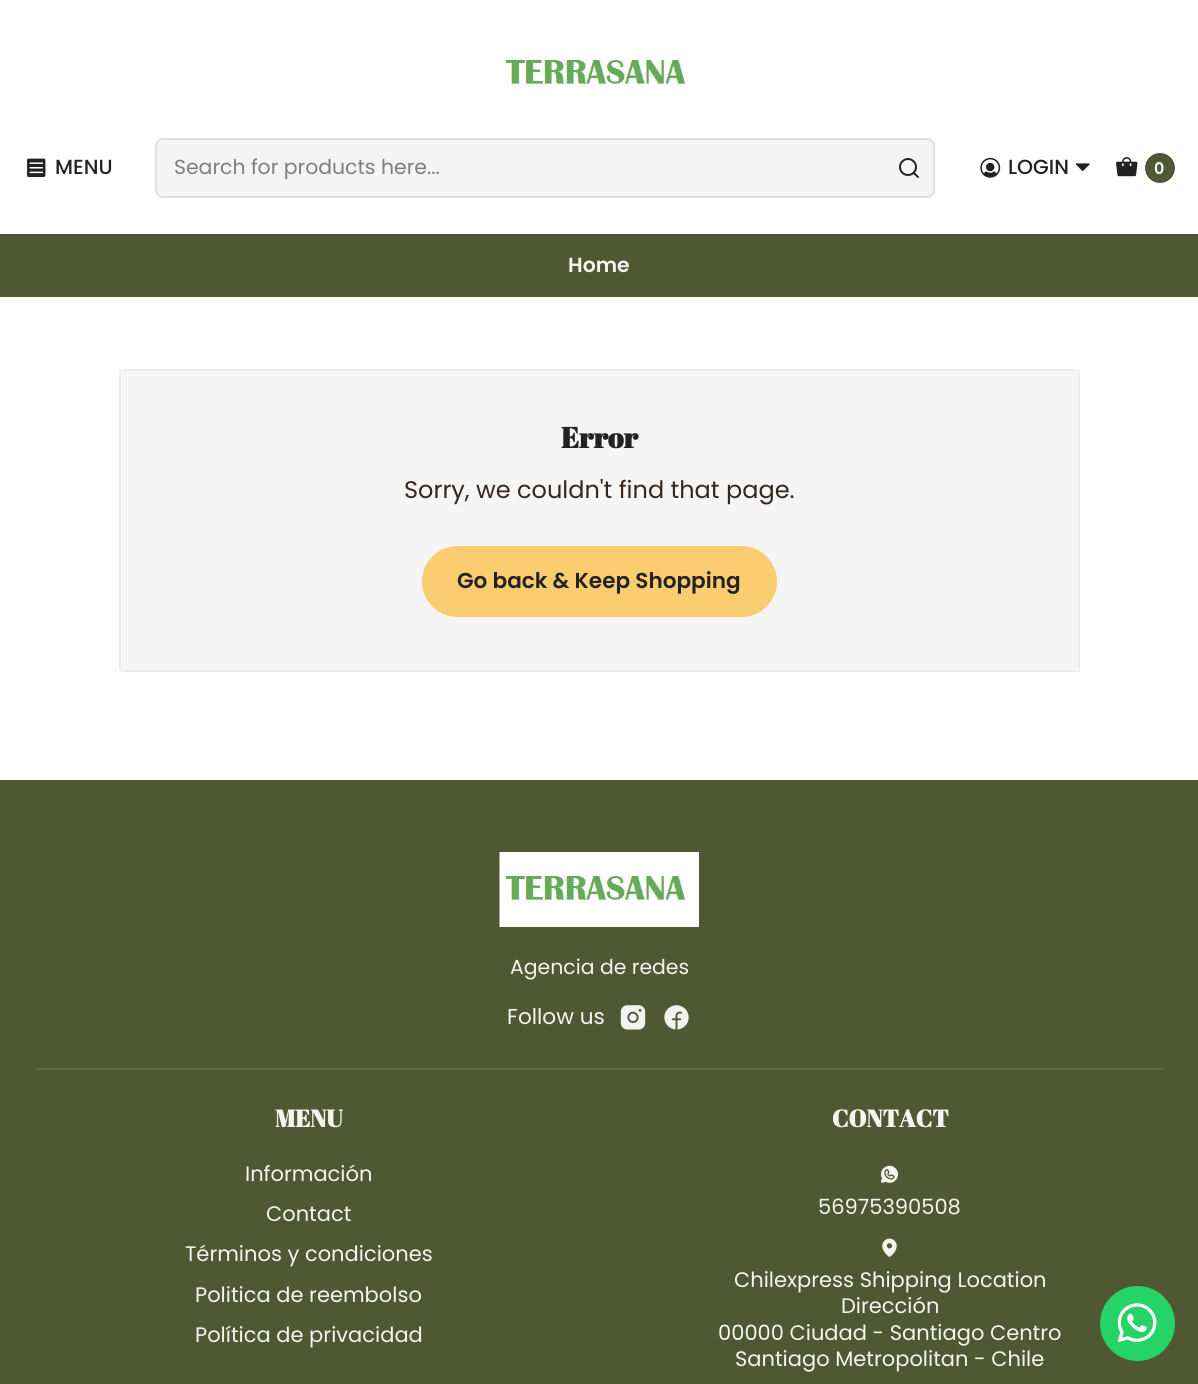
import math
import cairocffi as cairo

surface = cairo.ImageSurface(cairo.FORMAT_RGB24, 1198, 1384)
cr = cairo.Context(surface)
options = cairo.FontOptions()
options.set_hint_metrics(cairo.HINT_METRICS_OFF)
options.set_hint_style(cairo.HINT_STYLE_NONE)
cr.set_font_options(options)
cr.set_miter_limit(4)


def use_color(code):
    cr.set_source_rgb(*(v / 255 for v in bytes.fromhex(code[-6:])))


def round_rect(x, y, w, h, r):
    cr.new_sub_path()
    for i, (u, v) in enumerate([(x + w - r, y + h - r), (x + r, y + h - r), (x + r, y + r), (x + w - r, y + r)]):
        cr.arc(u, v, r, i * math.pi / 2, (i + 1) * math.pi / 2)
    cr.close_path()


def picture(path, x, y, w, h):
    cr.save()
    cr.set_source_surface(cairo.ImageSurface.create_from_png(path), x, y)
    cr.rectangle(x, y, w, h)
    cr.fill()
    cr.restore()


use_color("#ffffff")
cr.paint()
picture("img1.png", 501, 57, 188, 32)
picture("img2.png", 27, 158, 19, 19)
cr.select_font_face("Poppins Medium")
cr.set_font_size(20.4)
use_color("#222222")
cr.move_to(55, 174)
cr.show_text("MENU")
use_color("#f4f4f4")
round_rect(155, 138, 780, 60, 8)
cr.fill()
round_rect(156, 139, 778, 58, 7)
cr.set_source_rgba(0.133, 0.133, 0.133, 0.1)
cr.stroke()
cr.select_font_face("Poppins")
use_color("#7e7e7e")
cr.move_to(174, 174)
cr.show_text("Search for products here...")
picture("img3.png", 899, 158, 20, 20)
picture("img4.png", 980, 157, 21, 21)
cr.select_font_face("Poppins Medium")
use_color("#222222")
cr.move_to(1008, 174)
cr.show_text("LOGIN")
picture("img5.png", 1075, 163, 15, 8)
picture("img6.png", 1116, 157, 22, 20)
use_color("#4f5832")
cr.arc(1160, 168, 15, 0, 2 * math.pi)
cr.fill()
cr.select_font_face("Poppins SemiBold")
cr.set_font_size(16)
use_color("#f5f5f5")
cr.move_to(1154, 174)
cr.show_text("0")
use_color("#4f5832")
cr.rectangle(0, 234, 1198, 63)
cr.fill()
cr.set_font_size(20.4)
use_color("#f5f4ed")
cr.move_to(568, 272)
cr.show_text("Home")
use_color("#f5f5f5")
round_rect(119, 369, 961, 303, 8)
cr.fill()
cr.rectangle(120, 370, 959, 301)
cr.set_source_rgba(0.133, 0.133, 0.133, 0.05)
cr.stroke()
cr.select_font_face("Abril Fatface", cairo.FONT_SLANT_NORMAL, cairo.FONT_WEIGHT_BOLD)
cr.set_font_size(29)
use_color("#222222")
cr.move_to(561, 448)
cr.show_text("Error")
cr.select_font_face("Poppins")
cr.set_font_size(24)
use_color("#35271d")
cr.move_to(404, 498)
cr.show_text("Sorry, we couldn't find that page.")
use_color("#fbcc70")
round_rect(422, 546, 355, 71, 35.5)
cr.fill()
cr.select_font_face("Poppins SemiBold")
cr.set_font_size(21.6)
use_color("#222222")
cr.move_to(457, 588)
cr.show_text("Go back & Keep Shopping")
use_color("#4f5832")
cr.rectangle(0, 780, 1198, 604)
cr.fill()
picture("img7.png", 499, 852, 200, 75)
cr.select_font_face("Poppins")
cr.set_font_size(20.4)
use_color("#f5f4ed")
cr.move_to(510, 974)
cr.show_text("Agencia de redes")
cr.set_font_size(21.6)
cr.move_to(507, 1024)
cr.show_text("Follow us")
picture("img8.png", 620, 1005, 26, 25)
picture("img9.png", 664, 1005, 25, 25)
use_color("#5f6745")
cr.rectangle(36, 1068, 1127, 2)
cr.fill()
cr.select_font_face("Abril Fatface", cairo.FONT_SLANT_NORMAL, cairo.FONT_WEIGHT_BOLD)
cr.set_font_size(24)
use_color("#f5f4ed")
cr.move_to(275, 1127)
cr.show_text("MENU")
cr.select_font_face("Poppins")
cr.set_font_size(21)
cr.move_to(245, 1181)
cr.show_text("Información")
cr.move_to(266, 1221)
cr.show_text("Contact")
cr.move_to(185, 1261)
cr.show_text("Términos y condiciones")
cr.move_to(195, 1302)
cr.show_text("Politica de reembolso")
cr.move_to(195, 1342)
cr.show_text("Política de privacidad")
cr.select_font_face("Abril Fatface", cairo.FONT_SLANT_NORMAL, cairo.FONT_WEIGHT_BOLD)
cr.set_font_size(24)
cr.move_to(832, 1127)
cr.show_text("CONTACT")
picture("img10.png", 881, 1165, 17, 18)
cr.select_font_face("Poppins")
cr.set_font_size(21)
cr.move_to(818, 1214)
cr.show_text("56975390508")
picture("img11.png", 882, 1238, 15, 19)
cr.move_to(734, 1287)
cr.show_text("Chilexpress Shipping Location")
cr.move_to(841, 1313)
cr.show_text("Dirección")
cr.move_to(718, 1340)
cr.show_text("00000 Ciudad - Santiago Centro")
cr.move_to(735, 1366)
cr.show_text("Santiago Metropolitan - Chile")
use_color("#25d366")
cr.new_path()
cr.arc(1137.5, 1323.5, 37.5, 0, 2 * math.pi)
cr.fill()
picture("img12.png", 1118, 1303, 39, 40)
surface.write_to_png("result.png")
